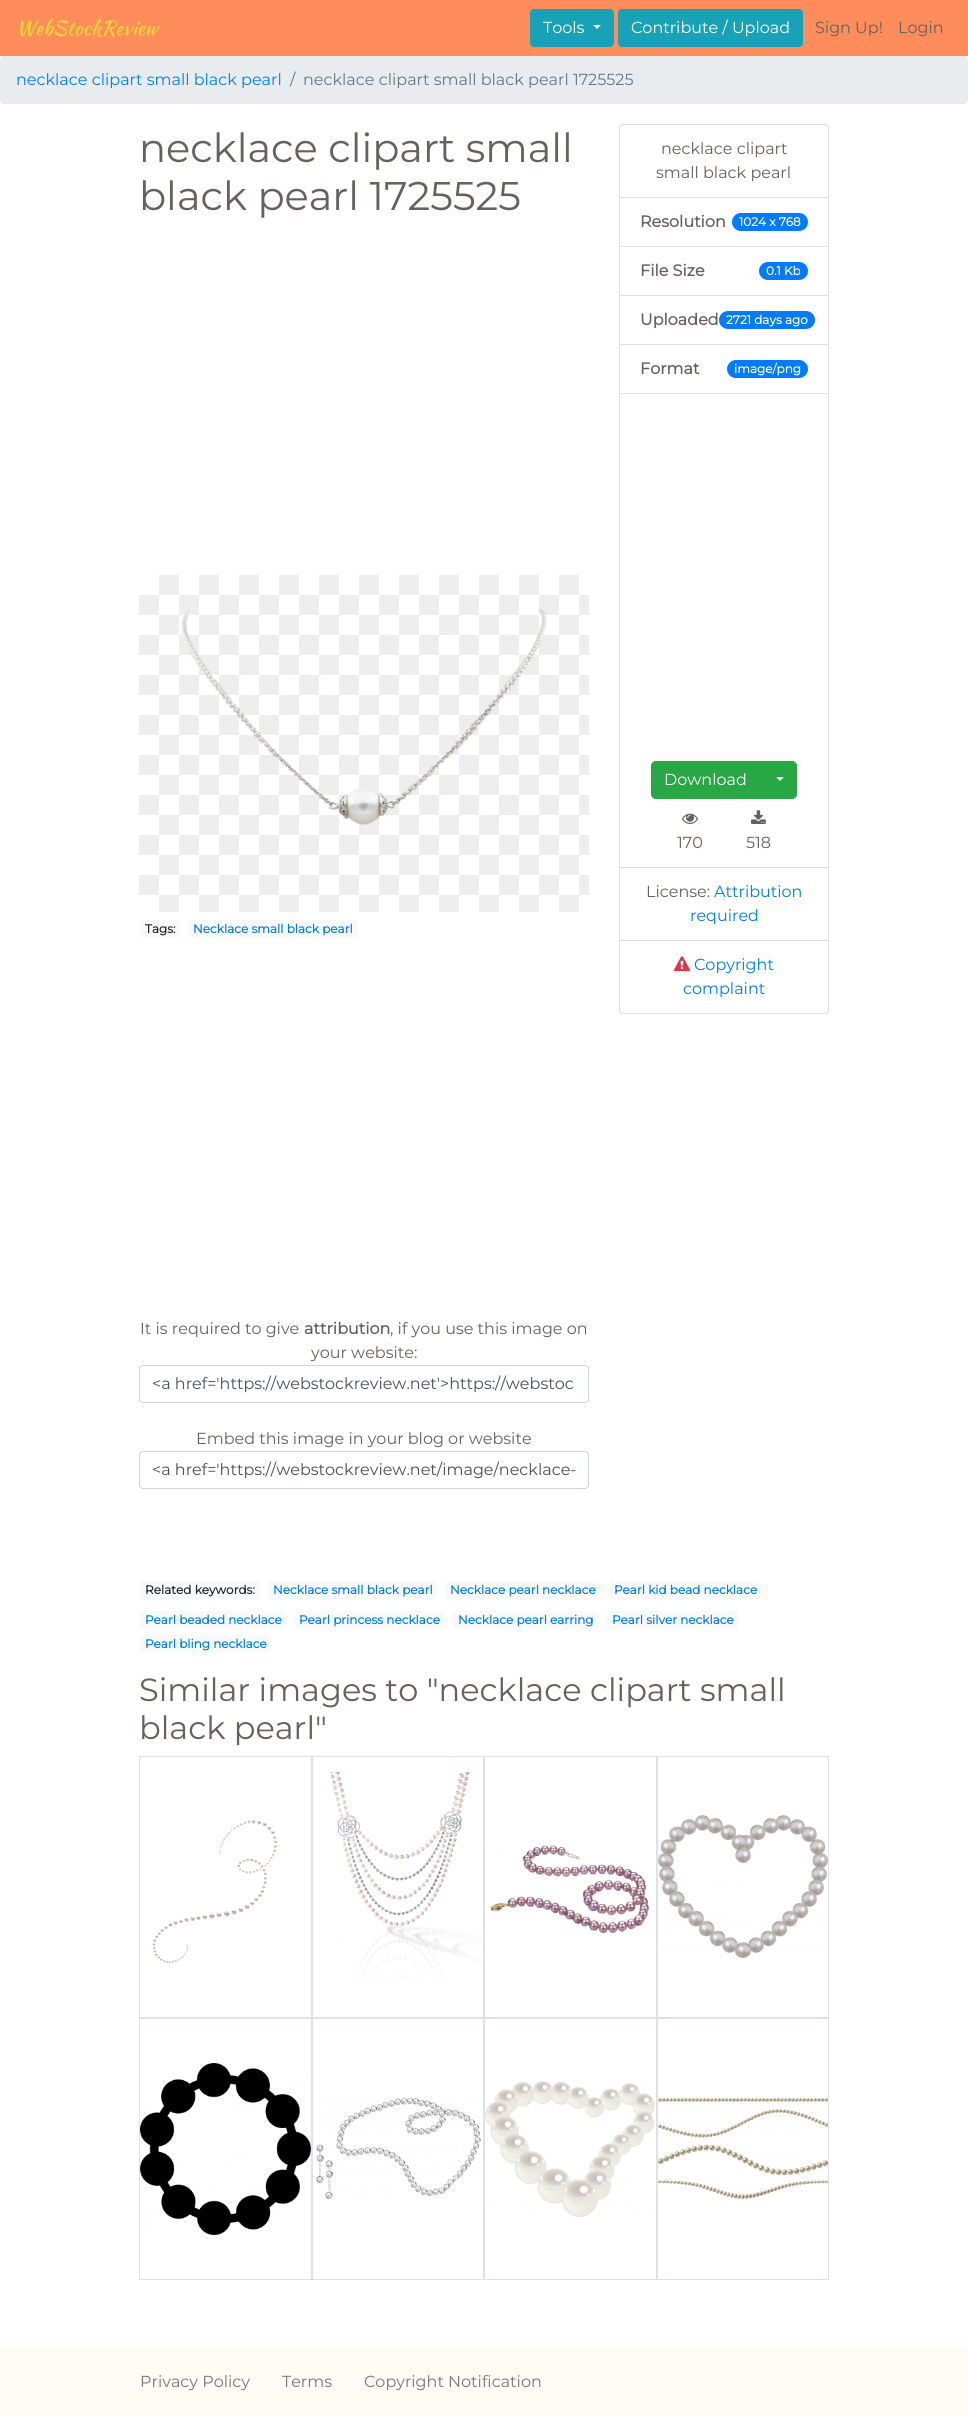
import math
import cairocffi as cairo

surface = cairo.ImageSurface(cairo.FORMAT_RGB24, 968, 2416)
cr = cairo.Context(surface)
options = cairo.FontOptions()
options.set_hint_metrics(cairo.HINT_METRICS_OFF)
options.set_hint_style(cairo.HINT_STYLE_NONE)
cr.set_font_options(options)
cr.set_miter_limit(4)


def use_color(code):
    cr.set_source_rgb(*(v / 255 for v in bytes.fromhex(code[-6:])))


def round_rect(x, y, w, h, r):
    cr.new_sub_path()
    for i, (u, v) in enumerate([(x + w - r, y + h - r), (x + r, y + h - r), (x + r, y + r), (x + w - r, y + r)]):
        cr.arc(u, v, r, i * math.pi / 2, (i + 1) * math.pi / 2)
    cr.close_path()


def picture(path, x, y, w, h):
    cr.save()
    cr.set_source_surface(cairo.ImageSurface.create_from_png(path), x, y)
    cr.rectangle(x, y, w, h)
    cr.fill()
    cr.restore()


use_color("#ffffff")
cr.paint()
use_color("#ff8d5c")
cr.rectangle(0, 0, 968, 56)
cr.fill()
cr.select_font_face("Kaushan Script")
cr.set_font_size(20)
use_color("#fed136")
cr.move_to(16, 35)
cr.show_text("WebStockReview")
use_color("#17a2b8")
round_rect(530.5, 9.5, 83, 37, 3.5)
cr.fill_preserve()
cr.set_line_width(1)
cr.stroke()
cr.select_font_face("Montserrat Thin")
cr.set_font_size(16)
use_color("#ffffff")
cr.move_to(543, 33)
cr.show_text("Tools")
cr.new_path()
cr.move_to(593, 25)
cr.line_to(601, 25)
cr.line_to(597, 29)
cr.close_path()
cr.fill()
use_color("#17a2b8")
round_rect(618.5, 9.5, 184, 37, 3.5)
cr.fill_preserve()
cr.stroke()
use_color("#ffffff")
cr.move_to(631, 33)
cr.show_text("Contribute / Upload")
use_color("#67615b")
cr.move_to(815, 33)
cr.show_text("Sign Up!")
cr.move_to(898, 33)
cr.show_text("Login")
use_color("#e9ecef")
round_rect(0, 56, 968, 48, 4)
cr.fill()
use_color("#007bff")
cr.move_to(16, 85)
cr.show_text("necklace clipart small black pearl")
use_color("#6c757d")
cr.move_to(290, 85)
cr.show_text("/")
cr.move_to(303, 85)
cr.show_text("necklace clipart small black pearl 1725525")
cr.set_font_size(40)
use_color("#67615b")
cr.move_to(139, 162)
cr.show_text("necklace clipart small")
cr.move_to(139, 210)
cr.show_text("black pearl 1725525")
picture("img1.png", 139, 575, 450, 337)
picture("img2.png", 181, 608, 367, 217)
use_color("#f8f9fa")
round_rect(140, 920, 40, 18, 4)
cr.fill()
cr.select_font_face("Montserrat", cairo.FONT_SLANT_NORMAL, cairo.FONT_WEIGHT_BOLD)
cr.set_font_size(12)
use_color("#212529")
cr.move_to(145, 933)
cr.show_text("Tags:")
use_color("#f8f9fa")
round_rect(188, 920, 170, 18, 4)
cr.fill()
use_color("#007bff")
cr.move_to(193, 933)
cr.show_text("Necklace small black pearl")
cr.select_font_face("Montserrat Thin")
cr.set_font_size(16)
use_color("#67615b")
cr.move_to(140, 1334)
cr.show_text("It is required to give")
cr.select_font_face("Montserrat", cairo.FONT_SLANT_NORMAL, cairo.FONT_WEIGHT_BOLD)
cr.move_to(304, 1334)
cr.show_text("attribution")
cr.select_font_face("Montserrat Thin")
cr.move_to(390, 1334)
cr.show_text(", if you use this image on")
cr.move_to(311, 1358)
cr.show_text("your website:")
round_rect(139.5, 1365.5, 449, 37, 3.5)
use_color("#ced4da")
cr.stroke()
use_color("#495057")
cr.move_to(152, 1389)
cr.show_text("<a href='https://webstockreview.net'>https://webstoc")
use_color("#67615b")
cr.move_to(196, 1444)
cr.show_text("Embed this image in your blog or website")
round_rect(139.5, 1451.5, 449, 37, 3.5)
use_color("#ced4da")
cr.stroke()
use_color("#495057")
cr.move_to(152, 1475)
cr.show_text("<a href='https://webstockreview.net/image/necklace-")
cr.new_path()
cr.move_to(623, 124.5)
cr.line_to(825, 124.5)
cr.curve_to(827, 124.5, 828.5, 126, 828.5, 128)
cr.line_to(828.5, 197.5)
cr.line_to(619.5, 197.5)
cr.line_to(619.5, 128)
cr.curve_to(619.5, 126, 621, 124.5, 623, 124.5)
cr.close_path()
use_color("#dfdfdf")
cr.stroke()
use_color("#67615b")
cr.move_to(661, 154)
cr.show_text("necklace clipart")
cr.move_to(656, 178)
cr.show_text("small black pearl")
cr.rectangle(619.5, 197.5, 209, 49)
use_color("#dfdfdf")
cr.stroke()
cr.select_font_face("Montserrat", cairo.FONT_SLANT_NORMAL, cairo.FONT_WEIGHT_BOLD)
use_color("#67615b")
cr.move_to(640, 227)
cr.show_text("Resolution")
use_color("#007bff")
round_rect(732, 213, 76, 18, 9)
cr.fill()
cr.set_font_size(12)
use_color("#ffffff")
cr.move_to(739, 226)
cr.show_text("1024 x 768")
cr.rectangle(619.5, 246.5, 209, 49)
use_color("#dfdfdf")
cr.stroke()
cr.set_font_size(16)
use_color("#67615b")
cr.move_to(640, 276)
cr.show_text("File Size")
use_color("#007bff")
round_rect(759, 262, 49, 18, 9)
cr.fill()
cr.set_font_size(12)
use_color("#ffffff")
cr.move_to(766, 275)
cr.show_text("0.1 Kb")
cr.rectangle(619.5, 295.5, 209, 49)
use_color("#dfdfdf")
cr.stroke()
cr.set_font_size(16)
use_color("#67615b")
cr.move_to(640, 325)
cr.show_text("Uploaded")
use_color("#007bff")
round_rect(719, 311, 96, 18, 9)
cr.fill()
cr.set_font_size(12)
use_color("#ffffff")
cr.move_to(726, 324)
cr.show_text("2721 days ago")
cr.rectangle(619.5, 344.5, 209, 49)
use_color("#dfdfdf")
cr.stroke()
cr.set_font_size(16)
use_color("#67615b")
cr.move_to(640, 374)
cr.show_text("Format")
use_color("#007bff")
round_rect(727, 360, 81, 18, 9)
cr.fill()
cr.set_font_size(12)
use_color("#ffffff")
cr.move_to(734, 373)
cr.show_text("image/png")
cr.rectangle(619.5, 393.5, 209, 474)
use_color("#dfdfdf")
cr.stroke()
use_color("#28a745")
cr.new_path()
cr.move_to(656, 761.5)
cr.line_to(759.5, 761.5)
cr.line_to(759.5, 798.5)
cr.line_to(656, 798.5)
cr.curve_to(653.5, 798.5, 651.5, 796.5, 651.5, 794)
cr.line_to(651.5, 766)
cr.curve_to(651.5, 763.5, 653.5, 761.5, 656, 761.5)
cr.close_path()
cr.fill_preserve()
cr.stroke()
cr.select_font_face("Montserrat Thin")
cr.set_font_size(16)
use_color("#ffffff")
cr.move_to(664, 785)
cr.show_text("Download")
use_color("#28a745")
cr.new_path()
cr.move_to(759.5, 761.5)
cr.line_to(792, 761.5)
cr.curve_to(794.5, 761.5, 796.5, 763.5, 796.5, 766)
cr.line_to(796.5, 794)
cr.curve_to(796.5, 796.5, 794.5, 798.5, 792, 798.5)
cr.line_to(759.5, 798.5)
cr.close_path()
cr.fill_preserve()
cr.stroke()
use_color("#ffffff")
cr.new_path()
cr.move_to(776, 777)
cr.line_to(784, 777)
cr.line_to(780, 781)
cr.close_path()
cr.fill()
picture("img3.png", 682, 813, 16, 11)
use_color("#67615b")
cr.move_to(677, 848)
cr.show_text("170")
picture("img4.png", 751, 810, 15, 14)
cr.move_to(746, 848)
cr.show_text("518")
cr.rectangle(619.5, 867.5, 209, 73)
use_color("#dfdfdf")
cr.stroke()
use_color("#67615b")
cr.move_to(646, 897)
cr.show_text("License:")
use_color("#007bff")
cr.move_to(714, 897)
cr.show_text("Attribution")
cr.move_to(690, 921)
cr.show_text("required")
use_color("#ffffff")
cr.new_path()
cr.move_to(619.5, 940.5)
cr.line_to(828.5, 940.5)
cr.line_to(828.5, 1010)
cr.curve_to(828.5, 1012, 827, 1013.5, 825, 1013.5)
cr.line_to(623, 1013.5)
cr.curve_to(621, 1013.5, 619.5, 1012, 619.5, 1010)
cr.close_path()
cr.fill_preserve()
use_color("#dfdfdf")
cr.stroke()
picture("img5.png", 674, 956, 16, 16)
use_color("#007bff")
cr.move_to(694, 970)
cr.show_text("Copyright")
cr.move_to(683, 994)
cr.show_text("complaint")
use_color("#f8f9fa")
round_rect(140, 1581, 120, 18, 4)
cr.fill()
cr.select_font_face("Montserrat", cairo.FONT_SLANT_NORMAL, cairo.FONT_WEIGHT_BOLD)
cr.set_font_size(12)
use_color("#212529")
cr.move_to(145, 1594)
cr.show_text("Related keywords:")
use_color("#f8f9fa")
round_rect(268, 1581, 169, 18, 4)
cr.fill()
use_color("#007bff")
cr.move_to(273, 1594)
cr.show_text("Necklace small black pearl")
use_color("#f8f9fa")
round_rect(445, 1581, 156, 18, 4)
cr.fill()
use_color("#007bff")
cr.move_to(450, 1594)
cr.show_text("Necklace pearl necklace")
use_color("#f8f9fa")
round_rect(609, 1581, 152, 18, 4)
cr.fill()
use_color("#007bff")
cr.move_to(614, 1594)
cr.show_text("Pearl kid bead necklace")
use_color("#f8f9fa")
round_rect(140, 1611, 146, 18, 4)
cr.fill()
use_color("#007bff")
cr.move_to(145, 1624)
cr.show_text("Pearl beaded necklace")
use_color("#f8f9fa")
round_rect(295, 1611, 150, 18, 4)
cr.fill()
use_color("#007bff")
cr.move_to(299, 1624)
cr.show_text("Pearl princess necklace")
use_color("#f8f9fa")
round_rect(453, 1611, 146, 18, 4)
cr.fill()
use_color("#007bff")
cr.move_to(458, 1624)
cr.show_text("Necklace pearl earring")
use_color("#f8f9fa")
round_rect(607, 1611, 131, 18, 4)
cr.fill()
use_color("#007bff")
cr.move_to(612, 1624)
cr.show_text("Pearl silver necklace")
use_color("#f8f9fa")
round_rect(140, 1635, 131, 18, 4)
cr.fill()
use_color("#007bff")
cr.move_to(145, 1648)
cr.show_text("Pearl bling necklace")
cr.select_font_face("Montserrat Thin")
cr.set_font_size(32)
use_color("#67615b")
cr.move_to(139, 1701)
cr.show_text("Similar images to \"necklace clipart small")
cr.move_to(139, 1739)
cr.show_text("black pearl\"")
picture("img6.png", 152, 1820, 125, 143)
cr.rectangle(139.5, 1756.5, 172, 261)
use_color("#dee2e6")
cr.stroke()
picture("img7.png", 329, 1772, 154, 211)
cr.rectangle(312.5, 1756.5, 171, 261)
cr.stroke()
picture("img8.png", 490, 1845, 160, 89)
cr.rectangle(484.5, 1756.5, 172, 261)
cr.stroke()
picture("img9.png", 658, 1815, 170, 143)
cr.rectangle(657.5, 1756.5, 171, 261)
cr.stroke()
picture("img10.png", 140, 2063, 171, 172)
cr.rectangle(139.5, 2018.5, 172, 261)
cr.stroke()
picture("img11.png", 316, 2097, 165, 102)
cr.rectangle(312.5, 2018.5, 171, 261)
cr.stroke()
picture("img12.png", 485, 2081, 171, 136)
cr.rectangle(484.5, 2018.5, 172, 261)
cr.stroke()
picture("img13.png", 658, 2098, 170, 101)
cr.rectangle(657.5, 2018.5, 171, 261)
cr.stroke()
use_color("#fffcf5")
cr.rectangle(0, 2346, 968, 70)
cr.fill()
cr.set_font_size(16)
use_color("#787878")
cr.move_to(140, 2387)
cr.show_text("Privacy Policy")
cr.move_to(282, 2387)
cr.show_text("Terms")
cr.move_to(364, 2387)
cr.show_text("Copyright Notification")
surface.write_to_png("result.png")
